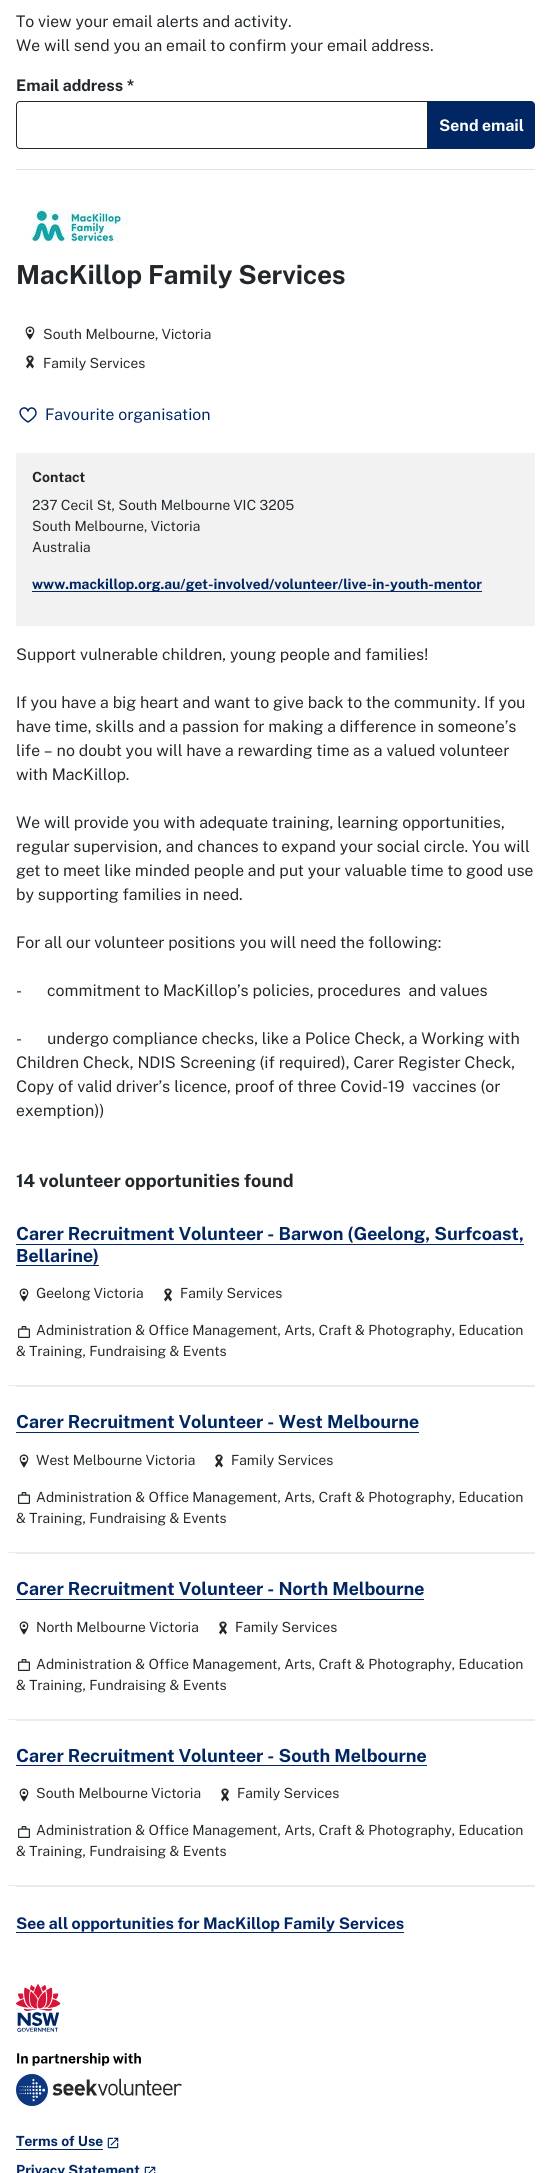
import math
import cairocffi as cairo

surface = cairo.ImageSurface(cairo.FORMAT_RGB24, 551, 2173)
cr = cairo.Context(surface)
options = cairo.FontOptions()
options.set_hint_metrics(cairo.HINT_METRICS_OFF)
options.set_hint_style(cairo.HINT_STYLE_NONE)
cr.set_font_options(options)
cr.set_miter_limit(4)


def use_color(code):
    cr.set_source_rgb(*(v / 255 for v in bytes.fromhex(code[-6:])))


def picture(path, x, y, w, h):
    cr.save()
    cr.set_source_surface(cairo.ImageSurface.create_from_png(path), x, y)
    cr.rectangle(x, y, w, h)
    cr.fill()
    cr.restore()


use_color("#ffffff")
cr.paint()
use_color("#e1e1e1")
cr.rectangle(16, 169, 519, 1)
cr.fill()
cr.select_font_face("Public Sans")
cr.set_font_size(16)
use_color("#22272b")
cr.move_to(16, 27)
cr.show_text("To view your email alerts and activity.")
cr.move_to(16, 51)
cr.show_text("We will send you an email to confirm your email address.")
cr.select_font_face("Public Sans", cairo.FONT_SLANT_NORMAL, cairo.FONT_WEIGHT_BOLD)
cr.move_to(16, 91)
cr.show_text("Email address *")
cr.new_path()
cr.move_to(20, 101.5)
cr.line_to(427.5, 101.5)
cr.line_to(427.5, 148.5)
cr.line_to(20, 148.5)
cr.curve_to(18, 148.5, 16.5, 147, 16.5, 145)
cr.line_to(16.5, 105)
cr.curve_to(16.5, 103, 18, 101.5, 20, 101.5)
cr.close_path()
cr.set_line_width(1)
cr.stroke()
use_color("#002664")
cr.new_path()
cr.move_to(429, 102)
cr.line_to(531, 102)
cr.curve_to(532.5, 102, 534, 103.5, 534, 105)
cr.line_to(534, 145)
cr.curve_to(534, 146.5, 532.5, 148, 531, 148)
cr.line_to(429, 148)
cr.close_path()
cr.fill_preserve()
cr.set_line_width(2)
cr.stroke()
use_color("#ffffff")
cr.move_to(439, 131)
cr.show_text("Send email")
picture("img1.png", 31, 209, 97, 34)
cr.set_font_size(26.2)
use_color("#22272b")
cr.move_to(16, 284)
cr.show_text("MacKillop Family Services")
picture("img2.png", 25, 326, 10, 14)
cr.select_font_face("Public Sans")
cr.set_font_size(14)
cr.move_to(43, 339)
cr.show_text("South Melbourne, Victoria")
picture("img3.png", 26, 355, 8, 14)
cr.move_to(43, 368)
cr.show_text("Family Services")
cr.set_font_size(16)
use_color("#002664")
cr.move_to(45, 420)
cr.show_text("Favourite organisation")
cr.new_path()
cr.move_to(36, 413)
cr.curve_to(36, 416.5, 30.5, 420.5, 28, 422)
cr.curve_to(11.5, 412, 25.5, 403, 28, 411)
cr.curve_to(29.5, 406, 36, 407.5, 36, 413)
cr.close_path()
cr.set_line_width(1.5)
cr.set_line_join(cairo.LINE_JOIN_ROUND)
cr.stroke()
use_color("#f2f2f2")
cr.rectangle(16, 453, 519, 173)
cr.fill()
cr.select_font_face("Public Sans", cairo.FONT_SLANT_NORMAL, cairo.FONT_WEIGHT_BOLD)
cr.set_font_size(14)
use_color("#22272b")
cr.move_to(32, 482)
cr.show_text("Contact")
cr.select_font_face("Public Sans")
cr.move_to(32, 510)
cr.show_text("237 Cecil St, South Melbourne VIC 3205")
cr.move_to(32, 531)
cr.show_text("South Melbourne, Victoria")
cr.move_to(32, 552)
cr.show_text("Australia")
use_color("#002664")
cr.rectangle(32, 591, 450, 1)
cr.fill()
cr.select_font_face("Public Sans", cairo.FONT_SLANT_NORMAL, cairo.FONT_WEIGHT_BOLD)
cr.move_to(32, 589)
cr.show_text("www.mackillop.org.au/get-involved/volunteer/live-in-youth-mentor")
cr.select_font_face("Public Sans")
cr.set_font_size(16)
use_color("#22272b")
cr.move_to(16, 660)
cr.show_text("Support vulnerable children, young people and families!")
cr.move_to(16, 708)
cr.show_text("If you have a big heart and want to give back to the community. If you")
cr.move_to(16, 732)
cr.show_text("have time, skills and a passion for making a difference in someone’s")
cr.move_to(16, 756)
cr.show_text("life – no doubt you will have a rewarding time as a valued volunteer")
cr.move_to(16, 780)
cr.show_text("with MacKillop.")
cr.move_to(16, 828)
cr.show_text("We will provide you with adequate training, learning opportunities,")
cr.move_to(16, 852)
cr.show_text("regular supervision, and chances to expand your social circle. You will")
cr.move_to(16, 876)
cr.show_text("get to meet like minded people and put your valuable time to good use")
cr.move_to(16, 900)
cr.show_text("by supporting families in need.")
cr.move_to(16, 948)
cr.show_text("For all our volunteer positions you will need the following:")
cr.move_to(16, 996)
cr.show_text("-")
cr.move_to(47, 996)
cr.show_text("commitment to MacKillop’s policies, procedures  and values")
cr.move_to(16, 1044)
cr.show_text("-")
cr.move_to(47, 1044)
cr.show_text("undergo compliance checks, like a Police Check, a Working with")
cr.move_to(16, 1068)
cr.show_text("Children Check, NDIS Screening (if required), Carer Register Check,")
cr.move_to(16, 1092)
cr.show_text("Copy of valid driver’s licence, proof of three Covid-19  vaccines (or")
cr.move_to(16, 1116)
cr.show_text("exemption))")
cr.select_font_face("Public Sans", cairo.FONT_SLANT_NORMAL, cairo.FONT_WEIGHT_BOLD)
cr.set_font_size(18)
cr.move_to(16, 1187)
cr.show_text("14 volunteer opportunities found")
use_color("#ebebeb")
cr.rectangle(16, 1386, 519, 1)
cr.fill()
cr.rectangle(8, 1385, 527, 1)
cr.fill()
use_color("#002664")
cr.move_to(16, 1240)
cr.show_text("Carer Recruitment Volunteer - Barwon (Geelong, Surfcoast,")
cr.rectangle(16, 1244, 508, 1)
cr.fill()
cr.move_to(16, 1262)
cr.show_text("Bellarine)")
cr.rectangle(16, 1265, 83, 1)
cr.fill()
picture("img2.png", 19, 1288, 10, 14)
cr.select_font_face("Public Sans")
cr.set_font_size(14)
use_color("#22272b")
cr.move_to(36, 1298)
cr.show_text("Geelong Victoria")
picture("img3.png", 164, 1288, 8, 14)
cr.move_to(180, 1298)
cr.show_text("Family Services")
picture("img4.png", 18, 1326, 12, 12)
cr.move_to(36, 1335)
cr.show_text("Administration & Office Management, Arts, Craft & Photography, Education")
cr.move_to(16, 1356)
cr.show_text("& Training, Fundraising & Events")
use_color("#ebebeb")
cr.rectangle(16, 1553, 519, 1)
cr.fill()
cr.rectangle(8, 1552, 527, 1)
cr.fill()
cr.select_font_face("Public Sans", cairo.FONT_SLANT_NORMAL, cairo.FONT_WEIGHT_BOLD)
cr.set_font_size(18)
use_color("#002664")
cr.move_to(16, 1428)
cr.show_text("Carer Recruitment Volunteer - West Melbourne")
cr.rectangle(16, 1432, 403, 1)
cr.fill()
picture("img5.png", 19, 1454, 10, 14)
cr.select_font_face("Public Sans")
cr.set_font_size(14)
use_color("#22272b")
cr.move_to(36, 1465)
cr.show_text("West Melbourne Victoria")
picture("img6.png", 215, 1454, 8, 14)
cr.move_to(231, 1465)
cr.show_text("Family Services")
picture("img4.png", 18, 1492, 12, 12)
cr.move_to(36, 1502)
cr.show_text("Administration & Office Management, Arts, Craft & Photography, Education")
cr.move_to(16, 1523)
cr.show_text("& Training, Fundraising & Events")
use_color("#ebebeb")
cr.rectangle(16, 1720, 519, 1)
cr.fill()
cr.rectangle(8, 1719, 527, 1)
cr.fill()
cr.select_font_face("Public Sans", cairo.FONT_SLANT_NORMAL, cairo.FONT_WEIGHT_BOLD)
cr.set_font_size(18)
use_color("#002664")
cr.move_to(16, 1595)
cr.show_text("Carer Recruitment Volunteer - North Melbourne")
cr.rectangle(16, 1599, 408, 1)
cr.fill()
picture("img2.png", 19, 1621, 10, 14)
cr.select_font_face("Public Sans")
cr.set_font_size(14)
use_color("#22272b")
cr.move_to(36, 1632)
cr.show_text("North Melbourne Victoria")
picture("img3.png", 219, 1621, 8, 14)
cr.move_to(235, 1632)
cr.show_text("Family Services")
picture("img4.png", 18, 1659, 12, 12)
cr.move_to(36, 1669)
cr.show_text("Administration & Office Management, Arts, Craft & Photography, Education")
cr.move_to(16, 1690)
cr.show_text("& Training, Fundraising & Events")
use_color("#ebebeb")
cr.rectangle(16, 1886, 519, 1)
cr.fill()
cr.rectangle(8, 1885, 527, 1)
cr.fill()
cr.select_font_face("Public Sans", cairo.FONT_SLANT_NORMAL, cairo.FONT_WEIGHT_BOLD)
cr.set_font_size(18)
use_color("#002664")
cr.move_to(16, 1762)
cr.show_text("Carer Recruitment Volunteer - South Melbourne")
cr.rectangle(16, 1765, 411, 1)
cr.fill()
picture("img2.png", 19, 1788, 10, 14)
cr.select_font_face("Public Sans")
cr.set_font_size(14)
use_color("#22272b")
cr.move_to(36, 1798)
cr.show_text("South Melbourne Victoria")
picture("img3.png", 221, 1788, 8, 14)
cr.move_to(237, 1798)
cr.show_text("Family Services")
picture("img4.png", 18, 1826, 12, 12)
cr.move_to(36, 1835)
cr.show_text("Administration & Office Management, Arts, Craft & Photography, Education")
cr.move_to(16, 1856)
cr.show_text("& Training, Fundraising & Events")
cr.select_font_face("Public Sans", cairo.FONT_SLANT_NORMAL, cairo.FONT_WEIGHT_BOLD)
cr.set_font_size(16)
use_color("#002664")
cr.move_to(16, 1929)
cr.show_text("See all opportunities for MacKillop Family Services")
cr.rectangle(16, 1932, 388, 1)
cr.fill()
picture("img7.png", 16, 1984, 166, 122)
cr.set_font_size(14)
cr.move_to(16, 2146)
cr.show_text("Terms of Use")
cr.rectangle(16, 2149, 87, 1)
cr.fill()
picture("img8.png", 107, 2137, 12, 12)
cr.move_to(16, 2175)
cr.show_text("Privacy Statement")
picture("img9.png", 144, 2166, 12, 7)
surface.write_to_png("result.png")
